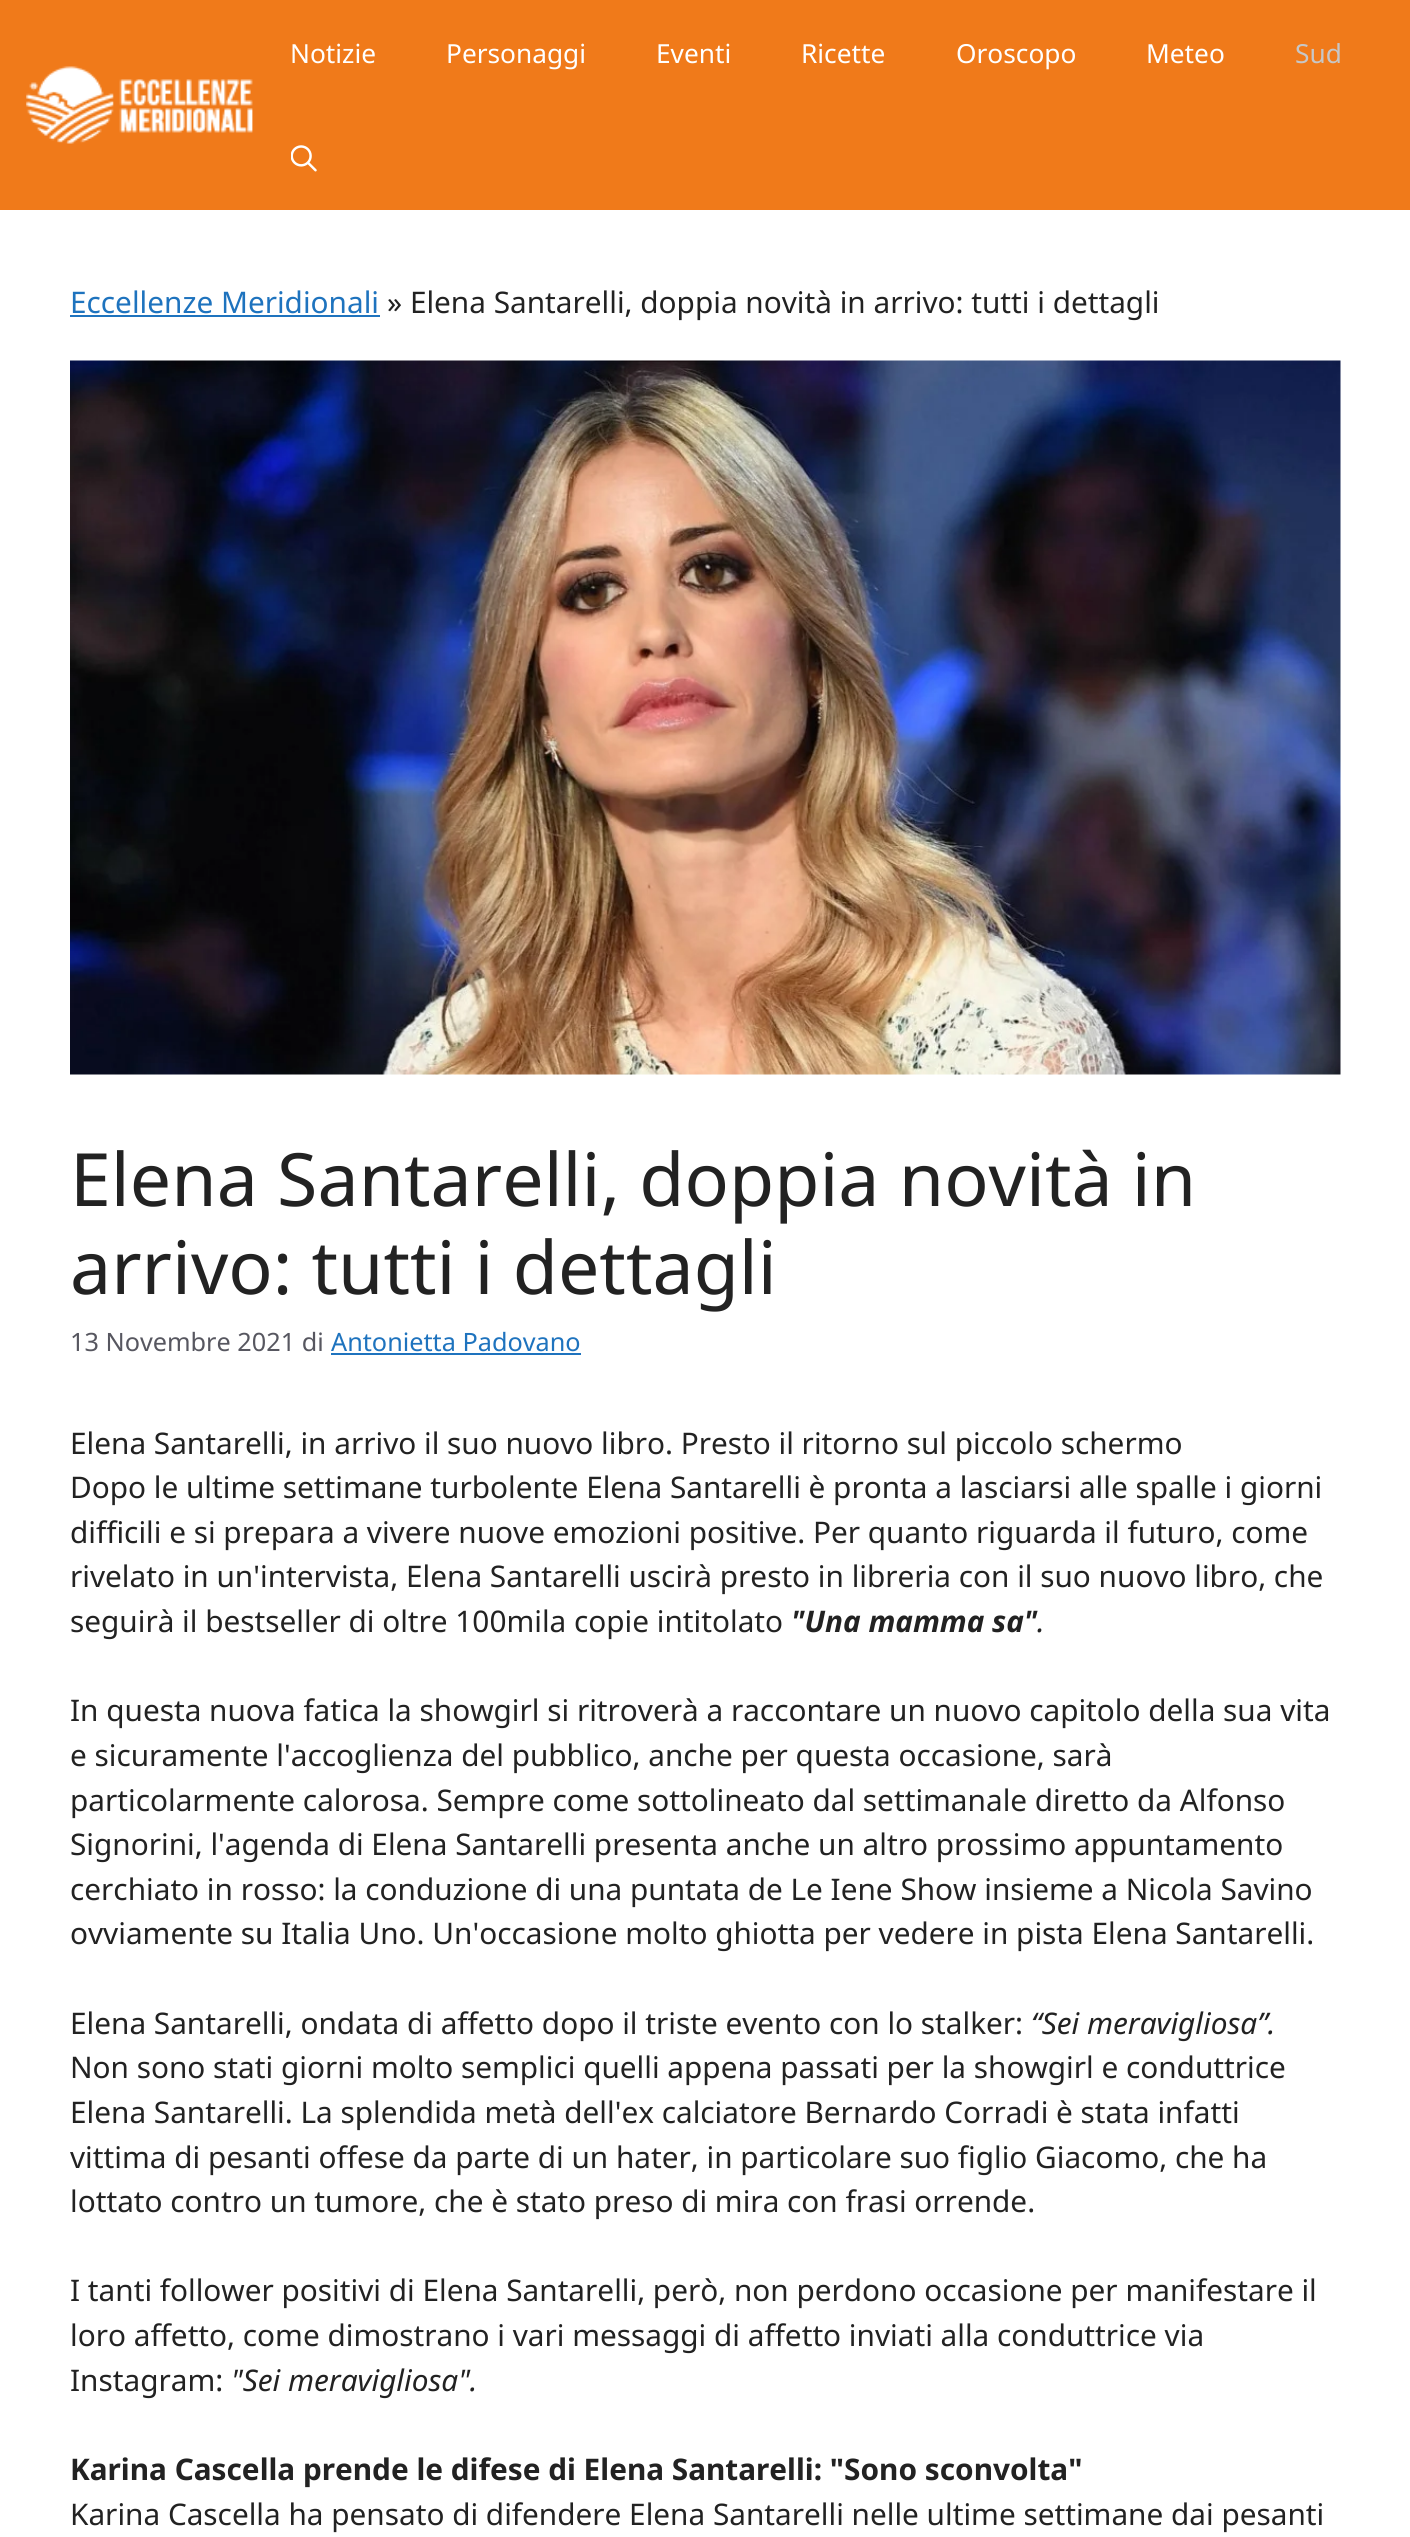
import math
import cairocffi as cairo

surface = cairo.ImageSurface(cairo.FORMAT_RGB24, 1410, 2537)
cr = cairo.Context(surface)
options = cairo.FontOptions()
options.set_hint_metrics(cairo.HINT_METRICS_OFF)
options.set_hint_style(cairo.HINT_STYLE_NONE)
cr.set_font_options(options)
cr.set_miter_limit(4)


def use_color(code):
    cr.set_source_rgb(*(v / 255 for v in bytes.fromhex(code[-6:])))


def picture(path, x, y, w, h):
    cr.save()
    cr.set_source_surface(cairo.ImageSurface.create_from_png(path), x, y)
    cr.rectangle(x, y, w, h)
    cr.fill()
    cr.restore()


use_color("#ffffff")
cr.paint()
use_color("#f07a1a")
cr.rectangle(0, 0, 1410, 210)
cr.fill()
cr.select_font_face("Noto Sans")
cr.set_font_size(26.25)
use_color("#ffffff")
cr.move_to(290, 63)
cr.show_text("Notizie")
cr.move_to(446, 63)
cr.show_text("Personaggi")
cr.move_to(656, 63)
cr.show_text("Eventi")
cr.move_to(801, 63)
cr.show_text("Ricette")
cr.move_to(956, 63)
cr.show_text("Oroscopo")
cr.move_to(1146, 63)
cr.show_text("Meteo")
use_color("#c7c7c7")
cr.move_to(1295, 63)
cr.show_text("Sud")
picture("img1.png", 291, 145, 26, 27)
picture("img2.png", 26, 66, 227, 78)
cr.set_font_size(29.75)
use_color("#1e73be")
cr.move_to(70, 313)
cr.show_text("Eccellenze Meridionali")
cr.rectangle(70, 315, 310, 2)
cr.fill()
use_color("#222222")
cr.move_to(387, 313)
cr.show_text("» Elena Santarelli, doppia novità in arrivo: tutti i dettagli")
picture("img3.png", 70, 360, 1271, 715)
cr.set_font_size(73.5)
cr.move_to(70, 1206)
cr.show_text("Elena Santarelli, doppia novità in")
cr.move_to(70, 1294)
cr.show_text("arrivo: tutti i dettagli")
cr.set_font_size(25.25)
use_color("#575760")
cr.move_to(70, 1351)
cr.show_text("13 Novembre 2021 di")
use_color("#1e73be")
cr.move_to(331, 1351)
cr.show_text("Antonietta Padovano")
cr.rectangle(331, 1353, 250, 2)
cr.fill()
cr.set_font_size(29.75)
use_color("#222222")
cr.move_to(70, 1454)
cr.show_text("Elena Santarelli, in arrivo il suo nuovo libro. Presto il ritorno sul piccolo schermo")
cr.move_to(70, 1498)
cr.show_text("Dopo le ultime settimane turbolente Elena Santarelli è pronta a lasciarsi alle spalle i giorni")
cr.move_to(70, 1543)
cr.show_text("difficili e si prepara a vivere nuove emozioni positive. Per quanto riguarda il futuro, come")
cr.move_to(70, 1587)
cr.show_text("rivelato in un'intervista, Elena Santarelli uscirà presto in libreria con il suo nuovo libro, che")
cr.move_to(70, 1632)
cr.show_text("seguirà il bestseller di oltre 100mila copie intitolato")
cr.select_font_face("Noto Sans", cairo.FONT_SLANT_ITALIC, cairo.FONT_WEIGHT_BOLD)
cr.move_to(791, 1632)
cr.show_text("\"Una mamma sa\"")
cr.select_font_face("Noto Sans", cairo.FONT_SLANT_ITALIC)
cr.move_to(1037, 1632)
cr.show_text(".")
cr.select_font_face("Noto Sans")
cr.move_to(70, 1721)
cr.show_text("In questa nuova fatica la showgirl si ritroverà a raccontare un nuovo capitolo della sua vita")
cr.move_to(70, 1766)
cr.show_text("e sicuramente l'accoglienza del pubblico, anche per questa occasione, sarà")
cr.move_to(70, 1811)
cr.show_text("particolarmente calorosa. Sempre come sottolineato dal settimanale diretto da Alfonso")
cr.move_to(70, 1855)
cr.show_text("Signorini, l'agenda di Elena Santarelli presenta anche un altro prossimo appuntamento")
cr.move_to(70, 1900)
cr.show_text("cerchiato in rosso: la conduzione di una puntata de Le Iene Show insieme a Nicola Savino")
cr.move_to(70, 1944)
cr.show_text("ovviamente su Italia Uno. Un'occasione molto ghiotta per vedere in pista Elena Santarelli.")
cr.move_to(70, 2034)
cr.show_text("Elena Santarelli, ondata di affetto dopo il triste evento con lo stalker:")
cr.select_font_face("Noto Sans", cairo.FONT_SLANT_ITALIC)
cr.move_to(1031, 2034)
cr.show_text("“Sei meravigliosa”.")
cr.select_font_face("Noto Sans")
cr.move_to(70, 2078)
cr.show_text("Non sono stati giorni molto semplici quelli appena passati per la showgirl e conduttrice")
cr.move_to(70, 2123)
cr.show_text("Elena Santarelli. La splendida metà dell'ex calciatore Bernardo Corradi è stata infatti")
cr.move_to(70, 2168)
cr.show_text("vittima di pesanti offese da parte di un hater, in particolare suo figlio Giacomo, che ha")
cr.move_to(70, 2212)
cr.show_text("lottato contro un tumore, che è stato preso di mira con frasi orrende.")
cr.move_to(70, 2301)
cr.show_text("I tanti follower positivi di Elena Santarelli, però, non perdono occasione per manifestare il")
cr.move_to(70, 2346)
cr.show_text("loro affetto, come dimostrano i vari messaggi di affetto inviati alla conduttrice via")
cr.move_to(70, 2391)
cr.show_text("Instagram:")
cr.select_font_face("Noto Sans", cairo.FONT_SLANT_ITALIC)
cr.move_to(231, 2391)
cr.show_text("\"Sei meravigliosa\".")
cr.select_font_face("Noto Sans", cairo.FONT_SLANT_NORMAL, cairo.FONT_WEIGHT_BOLD)
cr.move_to(70, 2480)
cr.show_text("Karina Cascella prende le difese di Elena Santarelli: \"Sono sconvolta\"")
cr.select_font_face("Noto Sans")
cr.move_to(70, 2525)
cr.show_text("Karina Cascella ha pensato di difendere Elena Santarelli nelle ultime settimane dai pesanti")
surface.write_to_png("result.png")
